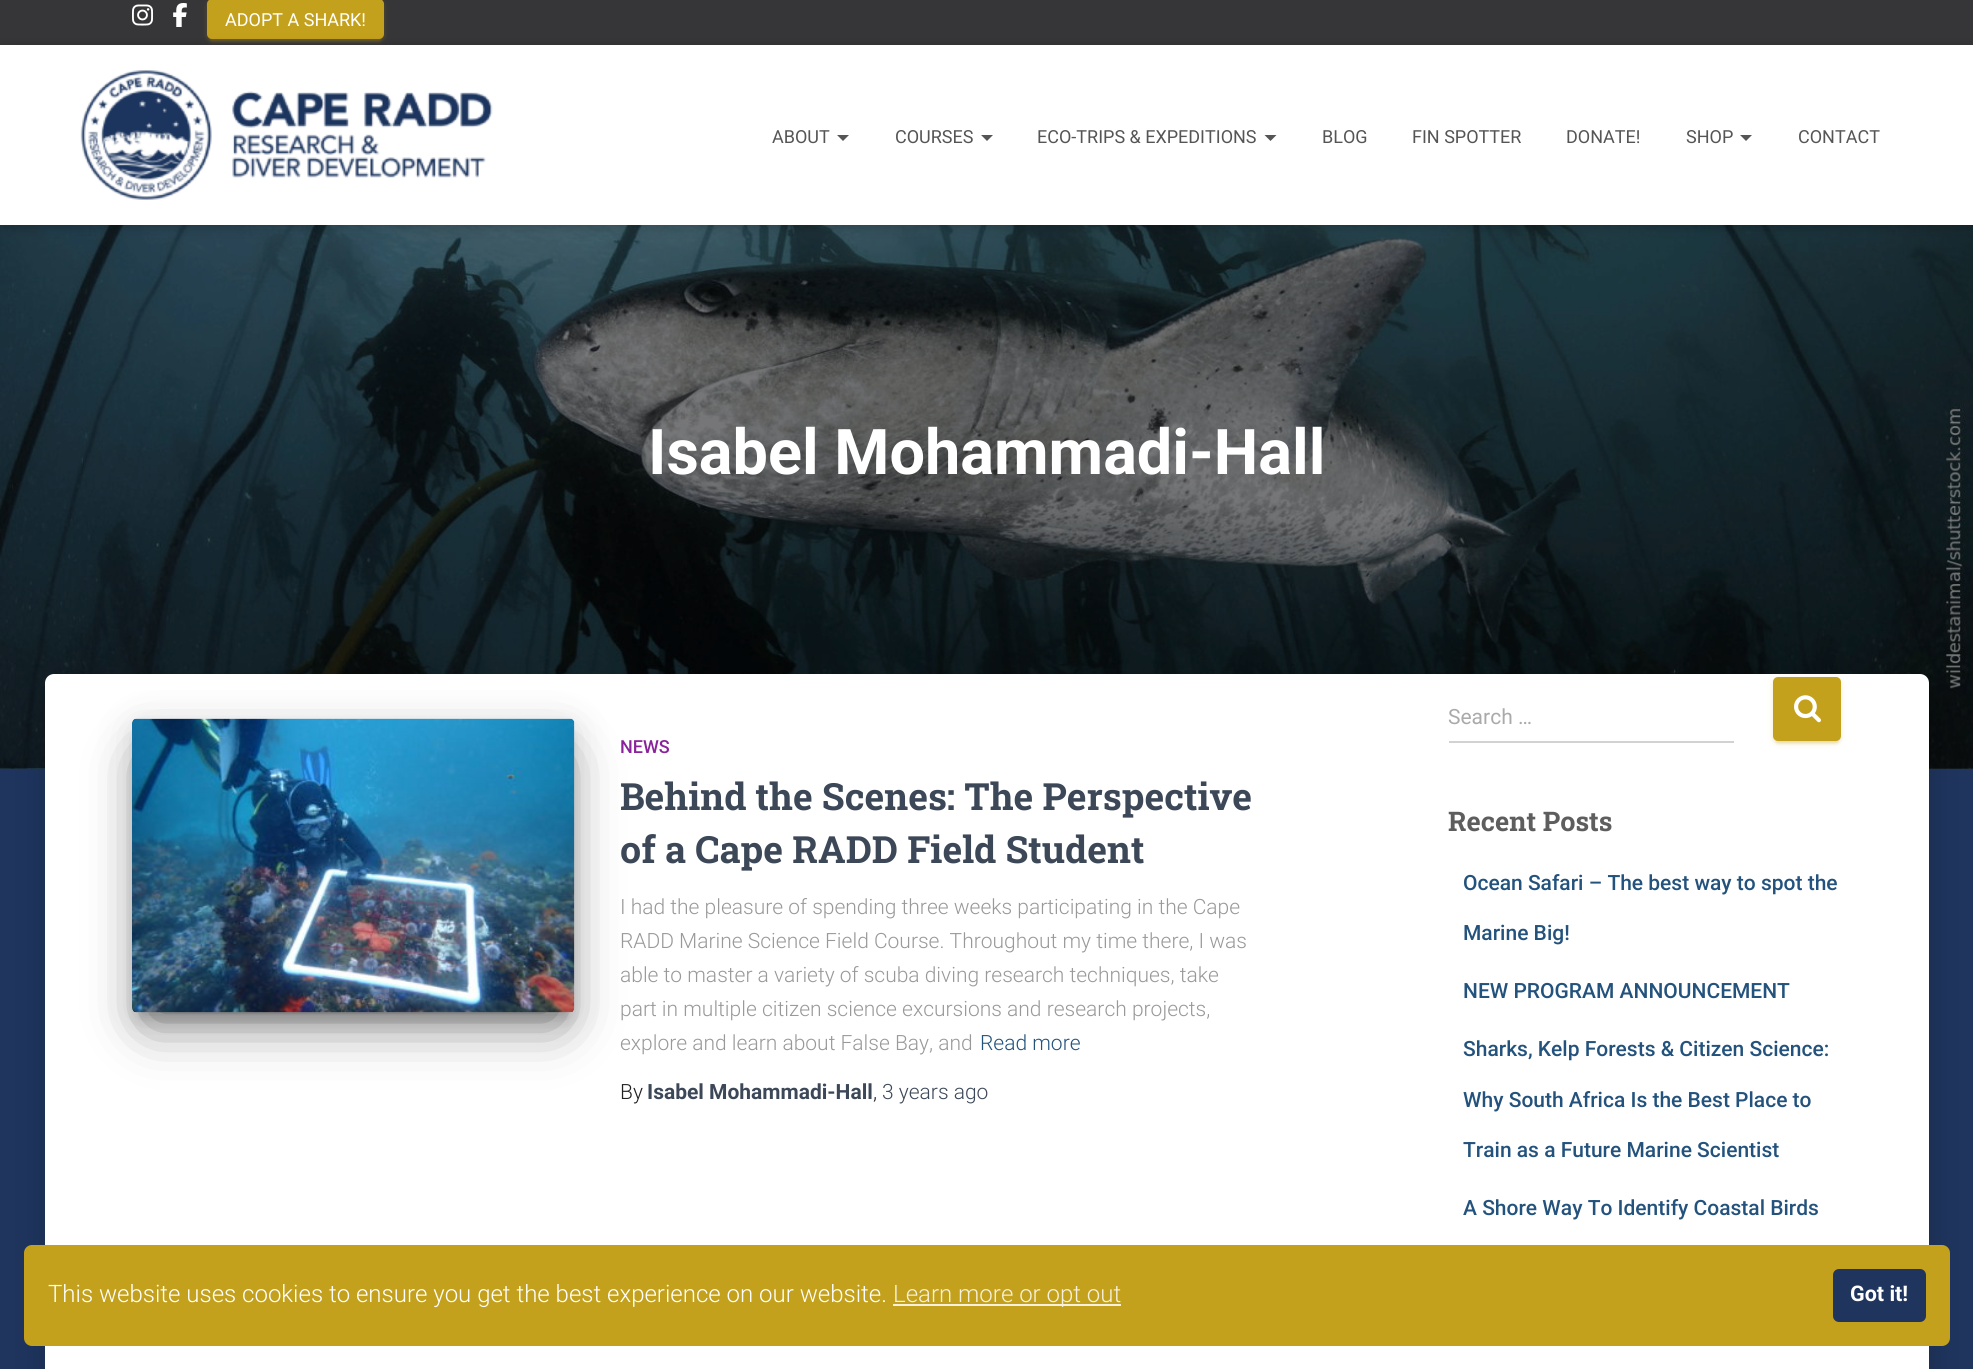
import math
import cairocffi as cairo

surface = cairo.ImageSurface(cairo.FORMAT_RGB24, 1973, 1369)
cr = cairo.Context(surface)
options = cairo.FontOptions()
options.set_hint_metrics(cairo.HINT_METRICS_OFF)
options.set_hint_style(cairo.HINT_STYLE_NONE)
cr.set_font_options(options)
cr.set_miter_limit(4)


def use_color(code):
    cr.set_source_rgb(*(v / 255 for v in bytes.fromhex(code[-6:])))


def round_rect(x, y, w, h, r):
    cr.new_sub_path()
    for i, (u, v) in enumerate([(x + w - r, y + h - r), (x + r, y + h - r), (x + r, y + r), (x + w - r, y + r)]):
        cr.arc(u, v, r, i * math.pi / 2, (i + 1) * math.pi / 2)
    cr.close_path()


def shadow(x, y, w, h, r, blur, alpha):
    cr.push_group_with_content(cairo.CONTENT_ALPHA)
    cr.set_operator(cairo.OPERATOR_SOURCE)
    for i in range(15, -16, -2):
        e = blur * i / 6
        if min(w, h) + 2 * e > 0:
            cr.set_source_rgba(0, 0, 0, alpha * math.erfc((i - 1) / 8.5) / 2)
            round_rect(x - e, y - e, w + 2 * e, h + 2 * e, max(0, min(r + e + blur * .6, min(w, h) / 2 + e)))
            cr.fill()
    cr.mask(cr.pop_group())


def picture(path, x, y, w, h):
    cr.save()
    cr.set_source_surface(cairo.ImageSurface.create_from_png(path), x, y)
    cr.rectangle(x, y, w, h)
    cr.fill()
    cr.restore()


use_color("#1f355e")
cr.paint()
use_color("#363537")
cr.rectangle(0, 0, 1973, 45)
cr.fill()
picture("img1.png", 132, 4, 21, 22)
picture("img2.png", 173, 3, 14, 24)
use_color("#c4a11c")
shadow(207, 0, 177, 41, 5, 4, 0.12)
shadow(210, 6, 171, 35, 1.5, 1, 0.2)
shadow(207, 2, 177, 40, 5, 1.5, 0.14)
use_color("#c4a11c")
round_rect(207, -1, 177, 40, 5)
cr.fill()
cr.select_font_face("Roboto")
cr.set_font_size(18)
use_color("#ffffff")
cr.move_to(225, 26)
cr.show_text("ADOPT A SHARK!")
picture("img4.png", 0, 225, 1973, 544)
use_color("#000000")
shadow(0, 47, 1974, 180, 0, 7.5, 0.12)
shadow(9, 56, 1956, 162, 0, 7.5, 0.42)
use_color("#ffffff")
cr.rectangle(0, 45, 1973, 180)
cr.fill()
picture("img3.png", 80, 70, 413, 130)
use_color("#555555")
cr.move_to(772, 143)
cr.show_text("ABOUT")
cr.new_path()
cr.move_to(837, 135)
cr.line_to(849, 135)
cr.line_to(843, 141)
cr.close_path()
cr.fill()
cr.move_to(895, 143)
cr.show_text("COURSES")
cr.new_path()
cr.move_to(981, 135)
cr.line_to(993, 135)
cr.line_to(987, 141)
cr.close_path()
cr.fill()
cr.move_to(1037, 143)
cr.show_text("ECO-TRIPS & EXPEDITIONS")
cr.new_path()
cr.move_to(1264.5, 135)
cr.line_to(1276.5, 135)
cr.line_to(1270.5, 141)
cr.close_path()
cr.fill()
cr.move_to(1322, 143)
cr.show_text("BLOG")
cr.move_to(1412, 143)
cr.show_text("FIN SPOTTER")
cr.move_to(1566, 143)
cr.show_text("DONATE!")
cr.move_to(1686, 143)
cr.show_text("SHOP")
cr.new_path()
cr.move_to(1740, 135)
cr.line_to(1752, 135)
cr.line_to(1746, 141)
cr.close_path()
cr.fill()
cr.move_to(1798, 143)
cr.show_text("CONTACT")
cr.select_font_face("Roboto", cairo.FONT_SLANT_NORMAL, cairo.FONT_WEIGHT_BOLD)
cr.set_font_size(63)
use_color("#ffffff")
cr.move_to(648, 474)
cr.show_text("Isabel Mohammadi-Hall")
use_color("#000000")
shadow(53, 693, 1869, 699, 1.5, 7.5, 0.2)
shadow(42, 695, 1890, 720, 12, 18, 0.14)
use_color("#ffffff")
cr.new_path()
cr.move_to(54, 674)
cr.line_to(1920, 674)
cr.curve_to(1925, 674, 1929, 678, 1929, 683)
cr.line_to(1929, 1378)
cr.line_to(45, 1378)
cr.line_to(45, 683)
cr.curve_to(45, 678, 49, 674, 54, 674)
cr.close_path()
cr.fill()
use_color("#000000")
shadow(140, 738, 427, 279, 0, 7.5, 0.2)
shadow(132, 725, 443, 294, 5, 19, 0.12)
shadow(150, 761, 407, 258, 0, 28.5, 0.56)
picture("img5.png", 132, 718, 443, 295)
cr.select_font_face("Roboto Medium")
cr.set_font_size(18)
use_color("#89229b")
cr.move_to(620, 753)
cr.show_text("NEWS")
cr.select_font_face("Roboto Slab", cairo.FONT_SLANT_NORMAL, cairo.FONT_WEIGHT_BOLD)
cr.set_font_size(37.5)
use_color("#3c4858")
cr.move_to(620, 810)
cr.show_text("Behind the Scenes: The Perspective")
cr.move_to(620, 863)
cr.show_text("of a Cape RADD Field Student")
cr.select_font_face("Roboto Light")
cr.set_font_size(21)
use_color("#999999")
cr.move_to(620, 914)
cr.show_text("I had the pleasure of spending three weeks participating in the Cape")
cr.move_to(620, 948)
cr.show_text("RADD Marine Science Field Course. Throughout my time there, I was")
cr.move_to(620, 982)
cr.show_text("able to master a variety of scuba diving research techniques, take")
cr.move_to(620, 1016)
cr.show_text("part in multiple citizen science excursions and research projects,")
cr.move_to(620, 1050)
cr.show_text("explore and learn about False Bay, and")
use_color("#23527c")
cr.move_to(980, 1050)
cr.show_text("Read more")
use_color("#212121")
cr.move_to(620, 1099)
cr.show_text("By")
cr.select_font_face("Roboto", cairo.FONT_SLANT_NORMAL, cairo.FONT_WEIGHT_BOLD)
use_color("#3c4858")
cr.move_to(647, 1099)
cr.show_text("Isabel Mohammadi-Hall")
cr.select_font_face("Roboto Light")
use_color("#212121")
cr.move_to(873, 1099)
cr.show_text(",")
use_color("#3c4858")
cr.move_to(882, 1099)
cr.show_text("3 years ago")
cr.select_font_face("Roboto")
use_color("#aaaaaa")
cr.move_to(1448, 724)
cr.show_text("Search …")
use_color("#d2d2d2")
cr.rectangle(1449, 741, 285, 2)
cr.fill()
use_color("#c4a11c")
shadow(1773, 678, 68, 65, 5, 4, 0.12)
shadow(1776, 684, 62, 59, 1.5, 1, 0.2)
shadow(1773, 680, 68, 64, 5, 1.5, 0.14)
use_color("#c4a11c")
round_rect(1773, 677, 68, 64, 5)
cr.fill()
picture("img6.png", 1794, 695, 27, 28)
cr.select_font_face("Roboto Slab", cairo.FONT_SLANT_NORMAL, cairo.FONT_WEIGHT_BOLD)
cr.set_font_size(27)
use_color("#5e5e5e")
cr.move_to(1448, 831)
cr.show_text("Recent Posts")
cr.select_font_face("Roboto Medium")
cr.set_font_size(21)
use_color("#23527c")
cr.move_to(1463, 890)
cr.show_text("Ocean Safari – The best way to spot the")
cr.move_to(1463, 940)
cr.show_text("Marine Big!")
cr.move_to(1463, 998)
cr.show_text("NEW PROGRAM ANNOUNCEMENT")
cr.move_to(1463, 1056)
cr.show_text("Sharks, Kelp Forests & Citizen Science:")
cr.move_to(1463, 1107)
cr.show_text("Why South Africa Is the Best Place to")
cr.move_to(1463, 1157)
cr.show_text("Train as a Future Marine Scientist")
cr.move_to(1463, 1215)
cr.show_text("A Shore Way To Identify Coastal Birds")
use_color("#c4a11c")
round_rect(24, 1245, 1926, 101, 8)
cr.fill()
cr.select_font_face("Roboto Light")
cr.set_font_size(24)
use_color("#ffffff")
cr.move_to(48, 1302)
cr.show_text("This website uses cookies to ensure you get the best experience on our website.")
use_color("#f6f1dd")
cr.rectangle(893, 1304, 228, 2)
cr.fill()
cr.move_to(893, 1302)
cr.show_text("Learn more or opt out")
use_color("#1f355e")
round_rect(1833, 1269, 93, 53, 6)
cr.fill()
cr.select_font_face("Roboto", cairo.FONT_SLANT_NORMAL, cairo.FONT_WEIGHT_BOLD)
cr.set_font_size(21.5)
use_color("#ffffff")
cr.move_to(1850, 1301)
cr.show_text("Got it!")
surface.write_to_png("result.png")
